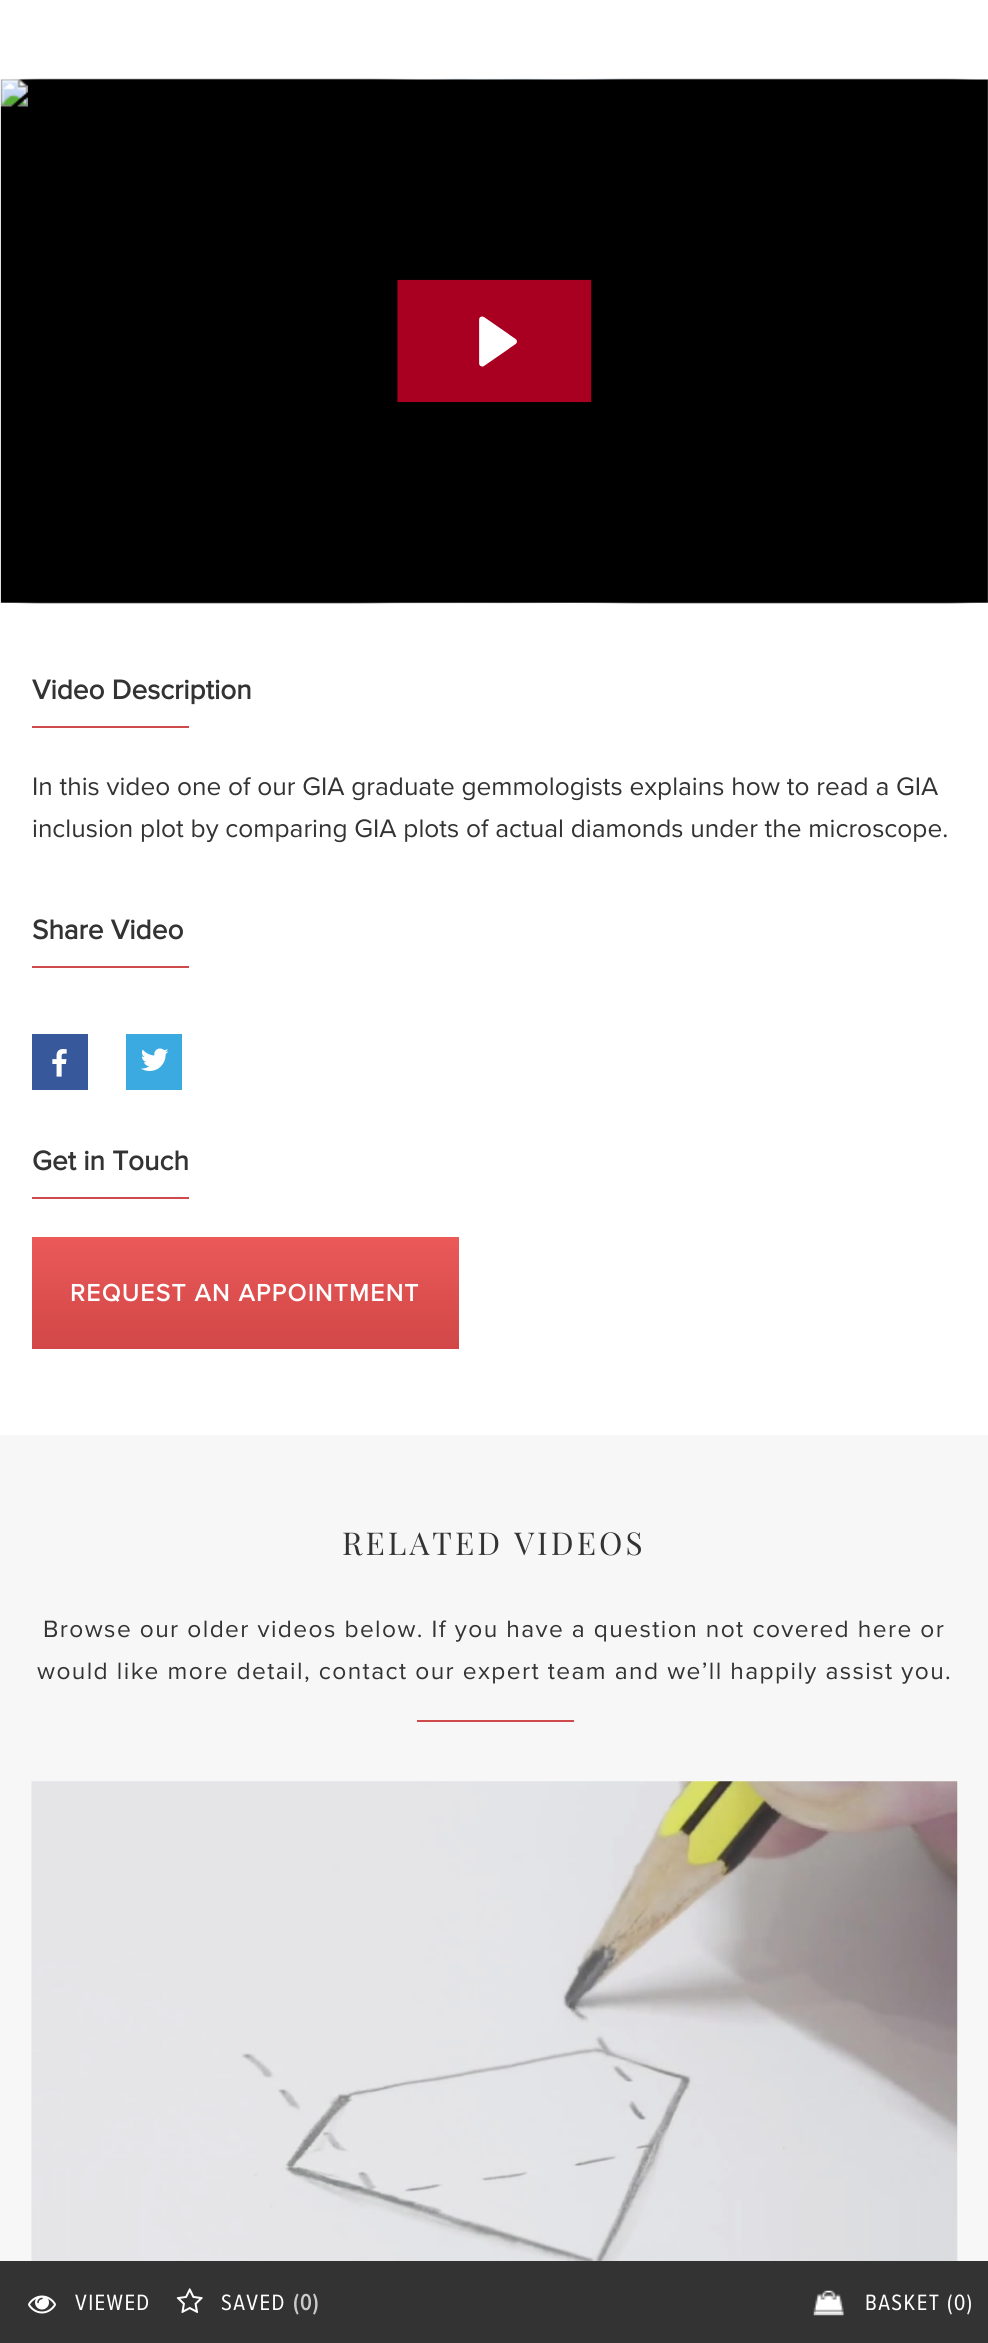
import math
import cairocffi as cairo

surface = cairo.ImageSurface(cairo.FORMAT_RGB24, 988, 2343)
cr = cairo.Context(surface)
options = cairo.FontOptions()
options.set_hint_metrics(cairo.HINT_METRICS_OFF)
options.set_hint_style(cairo.HINT_STYLE_NONE)
cr.set_font_options(options)
cr.set_miter_limit(4)


def use_color(code):
    cr.set_source_rgb(*(v / 255 for v in bytes.fromhex(code[-6:])))


def spaced_text(x, y, s, letter, word):
    cr.move_to(x, y)
    for ch in s:
        cr.show_text(ch)
        cr.rel_move_to(letter + word * (ch == ' '), 0)


def picture(path, x, y, w, h):
    cr.save()
    cr.set_source_surface(cairo.ImageSurface.create_from_png(path), x, y)
    cr.rectangle(x, y, w, h)
    cr.fill()
    cr.restore()


use_color("#ffffff")
cr.paint()
picture("img1.png", 0, 78, 988, 526)
cr.select_font_face("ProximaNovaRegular", cairo.FONT_SLANT_NORMAL, cairo.FONT_WEIGHT_BOLD)
cr.set_font_size(28)
use_color("#333333")
cr.move_to(32, 699)
cr.show_text("Video Description")
use_color("#cf4b4b")
cr.rectangle(32, 726, 157, 2)
cr.fill()
cr.select_font_face("ProximaNovaRegular")
cr.set_font_size(26.25)
use_color("#333333")
cr.move_to(32, 795)
cr.show_text("In this video one of our GIA graduate gemmologists explains how to read a GIA")
cr.move_to(32, 837)
cr.show_text("inclusion plot by comparing GIA plots of actual diamonds under the microscope.")
cr.select_font_face("ProximaNovaRegular", cairo.FONT_SLANT_NORMAL, cairo.FONT_WEIGHT_BOLD)
cr.set_font_size(28)
cr.move_to(32, 939)
cr.show_text("Share Video")
use_color("#cf4b4b")
cr.rectangle(32, 966, 157, 2)
cr.fill()
use_color("#37589b")
cr.rectangle(32, 1034, 56, 56)
cr.fill()
picture("img2.png", 52, 1049, 15, 28)
use_color("#3aaae1")
cr.rectangle(126, 1034, 56, 56)
cr.fill()
picture("img3.png", 141, 1048, 28, 23)
use_color("#333333")
cr.move_to(32, 1170)
cr.show_text("Get in Touch")
use_color("#cf4b4b")
cr.rectangle(32, 1197, 157, 2)
cr.fill()
gradient = cairo.LinearGradient(245, 1237, 245, 1349)
gradient.add_color_stop_rgba(0, 0.922, 0.349, 0.349, 1)
gradient.add_color_stop_rgba(1, 0.82, 0.278, 0.278, 1)
cr.set_source(gradient)
cr.rectangle(32, 1237, 427, 112)
cr.fill()
cr.set_font_size(24.5)
use_color("#ffffff")
spaced_text(70, 1301, "REQUEST AN APPOINTMENT", 1.4, 0)
use_color("#f7f7f7")
cr.rectangle(0, 1435, 988, 826)
cr.fill()
cr.select_font_face("Playfair Display")
cr.set_font_size(31.5)
use_color("#333333")
spaced_text(342, 1555, "RELATED VIDEOS", 3.1, 0)
cr.select_font_face("ProximaNovaRegular")
cr.set_font_size(24.5)
spaced_text(43, 1637, "Browse our older videos below. If you have a question not covered here or", 1.4, 0)
spaced_text(37, 1679, "would like more detail, contact our expert team and we’ll happily assist you.", 1.4, 0)
use_color("#cf4b4b")
cr.rectangle(417, 1720, 157, 2)
cr.fill()
picture("img4.png", 31, 1781, 927, 480)
use_color("#333333")
cr.rectangle(0, 2261, 988, 82)
cr.fill()
picture("img5.png", 28, 2295, 28, 19)
cr.select_font_face("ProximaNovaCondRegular")
cr.set_font_size(23)
use_color("#ffffff")
spaced_text(75, 2310, "VIEWED", 1.4, 0)
picture("img6.png", 176, 2288, 27, 25)
spaced_text(221, 2310, "SAVED", 1.4, 0)
cr.select_font_face("ProximaNovaCondRegular", cairo.FONT_SLANT_NORMAL, cairo.FONT_WEIGHT_BOLD)
use_color("#c9c9c9")
spaced_text(293, 2310, "(0)", 1.4, 0)
picture("img7.png", 813, 2290, 31, 26)
cr.select_font_face("ProximaNovaCondRegular")
use_color("#ffffff")
spaced_text(865, 2310, "BASKET", 1.4, 0)
spaced_text(947, 2310, "(0)", 1.4, 0)
surface.write_to_png("result.png")
